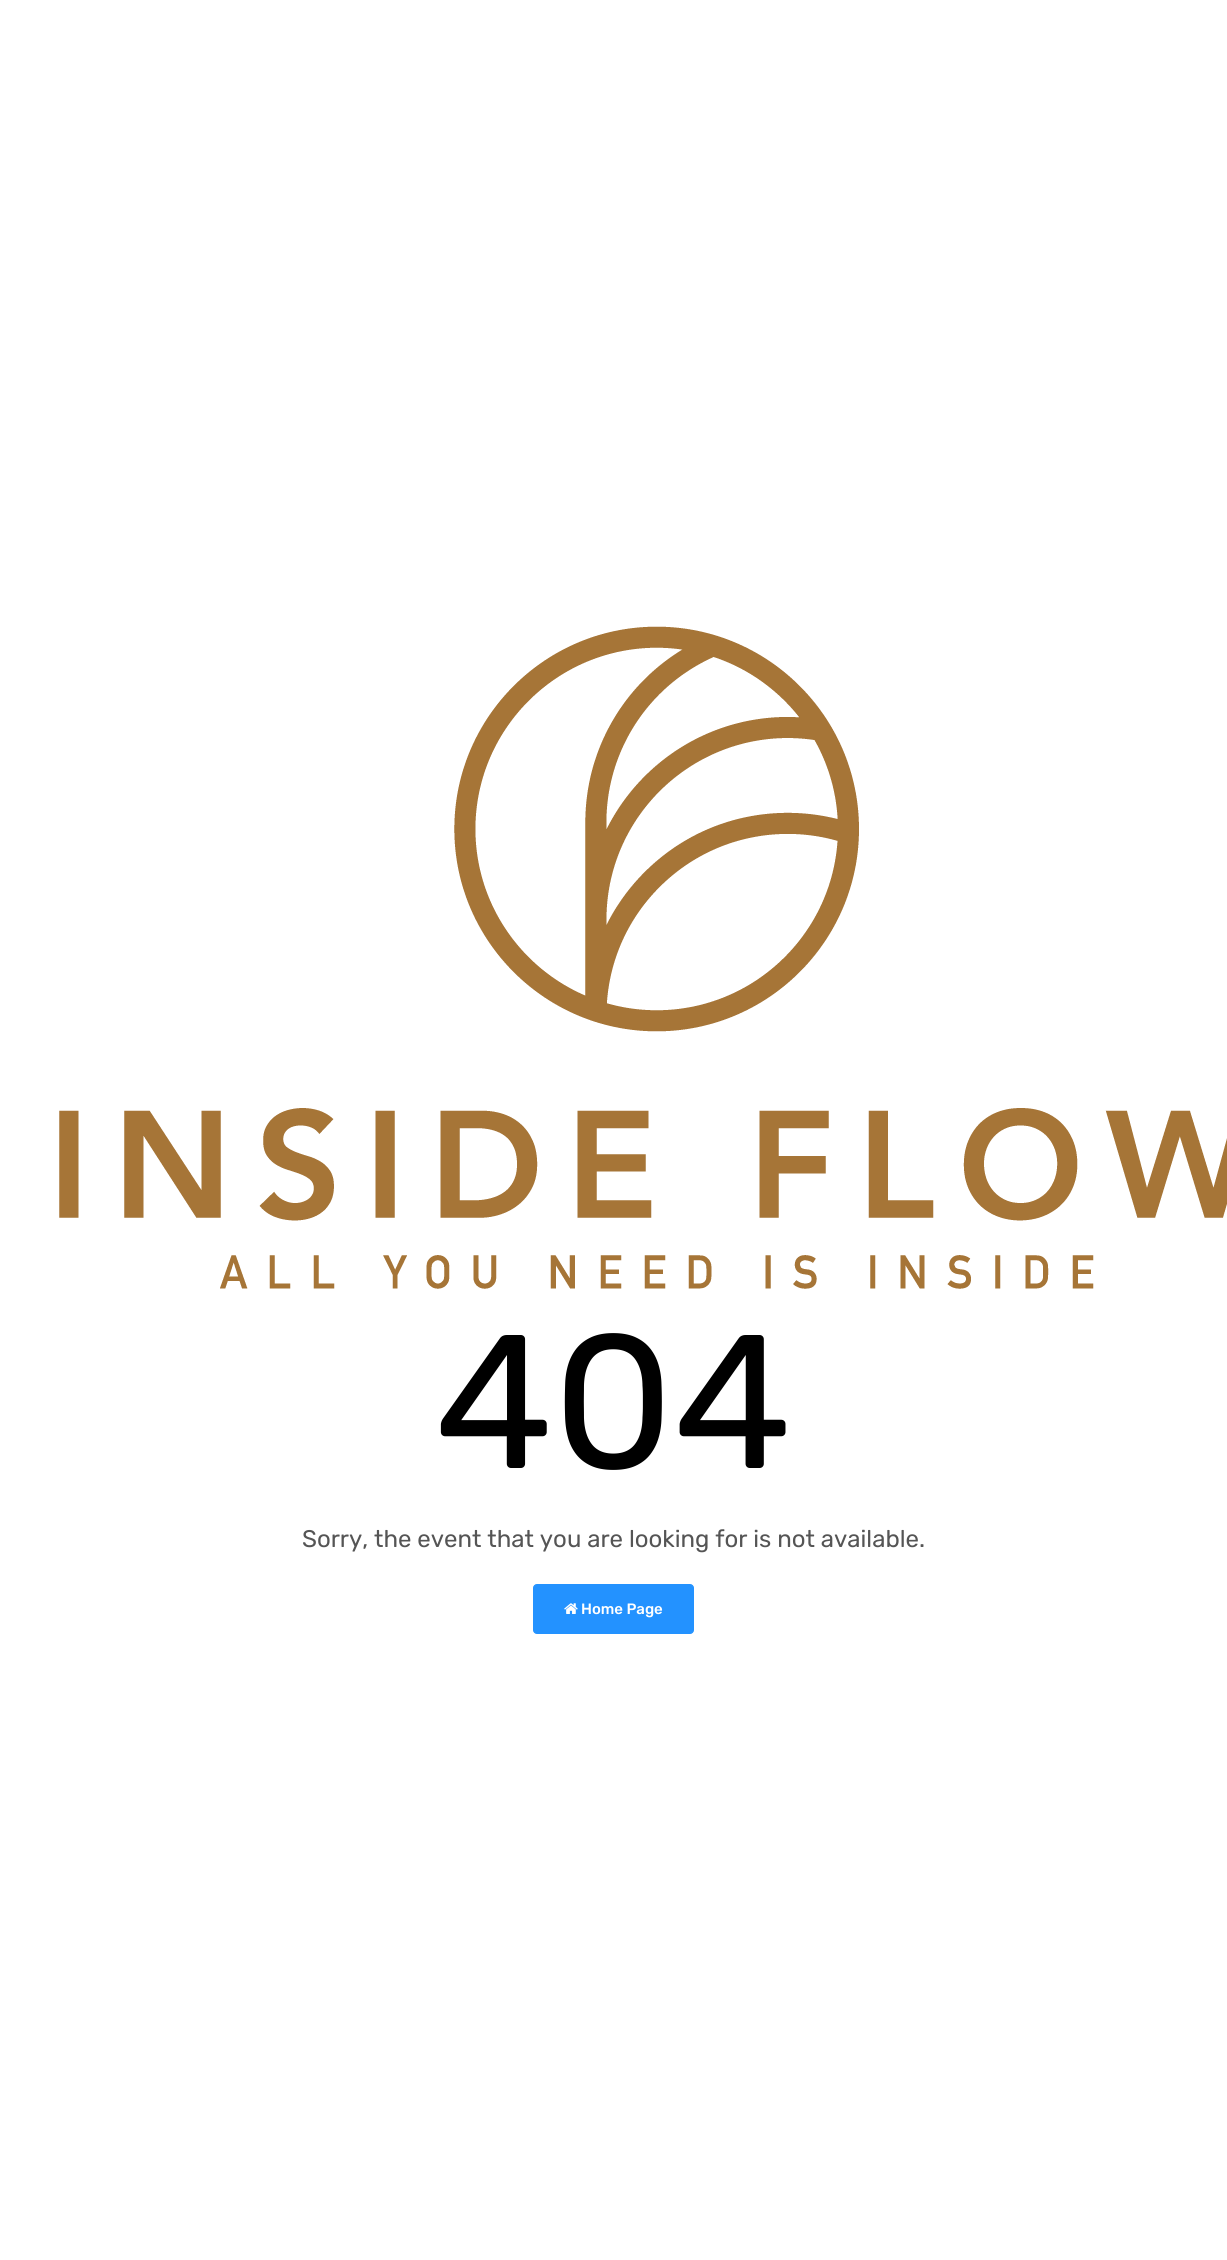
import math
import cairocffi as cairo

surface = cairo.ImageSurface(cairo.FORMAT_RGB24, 1227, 2260)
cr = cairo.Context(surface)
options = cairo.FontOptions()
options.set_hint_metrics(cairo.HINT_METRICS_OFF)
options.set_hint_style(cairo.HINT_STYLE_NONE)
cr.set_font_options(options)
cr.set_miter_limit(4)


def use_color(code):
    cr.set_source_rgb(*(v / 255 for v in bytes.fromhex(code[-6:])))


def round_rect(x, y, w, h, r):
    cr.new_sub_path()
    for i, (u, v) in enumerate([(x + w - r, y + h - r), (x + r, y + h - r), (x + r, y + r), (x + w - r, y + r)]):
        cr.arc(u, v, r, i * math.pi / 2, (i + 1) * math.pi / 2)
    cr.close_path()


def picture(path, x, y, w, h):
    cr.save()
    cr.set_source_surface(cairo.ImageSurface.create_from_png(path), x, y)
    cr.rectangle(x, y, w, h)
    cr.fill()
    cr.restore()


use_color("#ffffff")
cr.paint()
picture("img1.png", 59, 626, 1168, 663)
cr.select_font_face("Rubik")
cr.set_font_size(190)
use_color("#000000")
cr.move_to(435, 1468)
cr.show_text("404")
cr.set_font_size(24)
use_color("#555555")
cr.move_to(302, 1547)
cr.show_text("Sorry, the event that you are looking for is not available.")
use_color("#2392ff")
round_rect(533.5, 1584.5, 160, 49, 3.5)
cr.fill_preserve()
cr.set_line_width(1)
cr.stroke()
picture("img2.png", 564, 1603, 14, 11)
cr.select_font_face("Rubik Medium")
cr.set_font_size(15)
use_color("#ffffff")
cr.move_to(581, 1614)
cr.show_text("Home Page")
surface.write_to_png("result.png")
